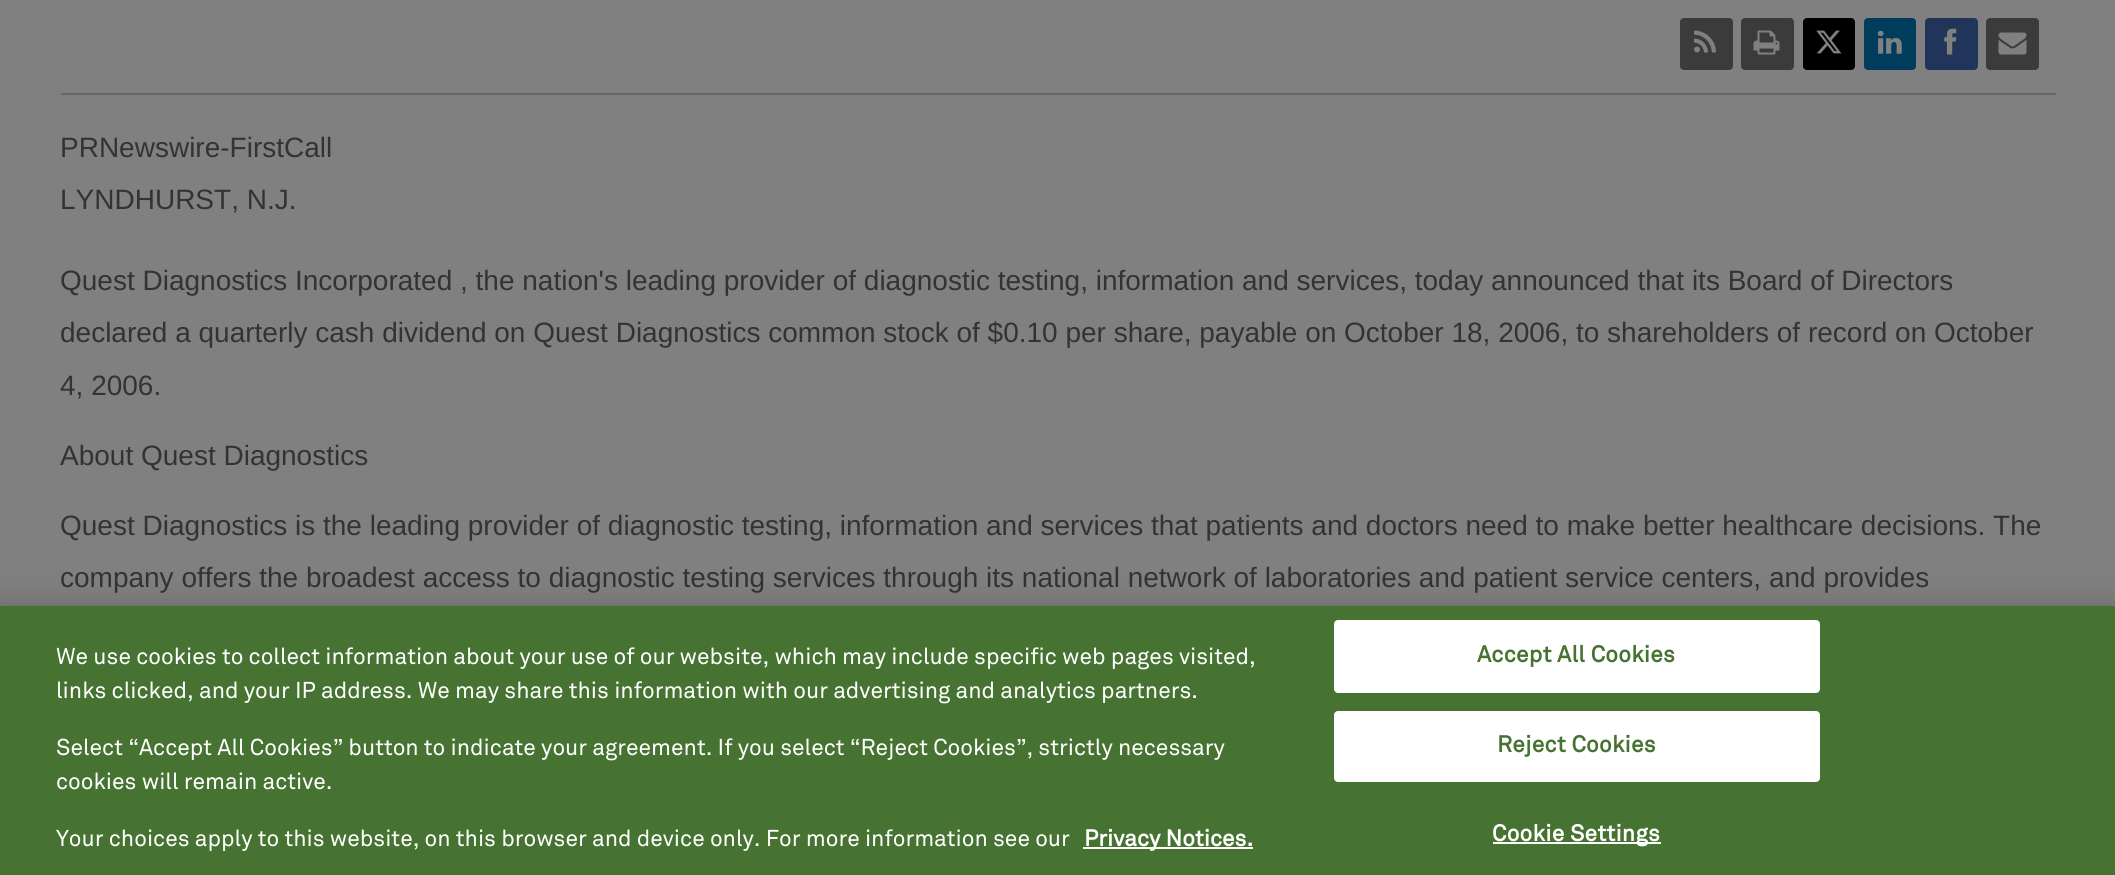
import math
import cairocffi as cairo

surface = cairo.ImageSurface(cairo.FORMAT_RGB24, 2115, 875)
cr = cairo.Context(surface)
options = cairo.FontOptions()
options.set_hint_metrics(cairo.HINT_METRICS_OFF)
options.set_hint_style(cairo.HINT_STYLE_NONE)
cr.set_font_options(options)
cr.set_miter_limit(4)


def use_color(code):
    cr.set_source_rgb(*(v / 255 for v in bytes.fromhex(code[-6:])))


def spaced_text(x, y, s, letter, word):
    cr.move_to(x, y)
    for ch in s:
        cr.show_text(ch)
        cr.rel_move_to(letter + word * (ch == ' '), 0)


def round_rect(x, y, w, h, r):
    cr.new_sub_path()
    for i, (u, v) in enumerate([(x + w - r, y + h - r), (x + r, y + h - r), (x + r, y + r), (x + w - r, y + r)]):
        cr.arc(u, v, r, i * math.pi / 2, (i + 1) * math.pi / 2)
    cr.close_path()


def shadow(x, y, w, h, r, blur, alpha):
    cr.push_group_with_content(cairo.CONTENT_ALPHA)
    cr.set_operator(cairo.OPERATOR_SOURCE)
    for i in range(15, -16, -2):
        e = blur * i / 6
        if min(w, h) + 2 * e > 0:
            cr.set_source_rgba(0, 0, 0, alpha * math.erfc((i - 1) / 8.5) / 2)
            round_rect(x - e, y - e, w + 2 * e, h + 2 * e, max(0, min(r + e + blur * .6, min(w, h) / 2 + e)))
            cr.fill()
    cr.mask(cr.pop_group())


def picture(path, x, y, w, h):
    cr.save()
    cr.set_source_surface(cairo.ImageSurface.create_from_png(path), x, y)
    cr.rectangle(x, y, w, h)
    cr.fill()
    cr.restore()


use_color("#808080")
cr.paint()
use_color("#666666")
cr.rectangle(61, 93, 1995, 2)
cr.fill()
use_color("#3b3b3b")
round_rect(1680, 18, 53, 52, 4)
cr.fill()
picture("img1.png", 1694, 30, 22, 23)
round_rect(1741, 18, 53, 52, 4)
cr.fill()
picture("img2.png", 1753, 30, 27, 25)
use_color("#000000")
round_rect(1803, 18, 52, 52, 4)
cr.fill()
picture("img3.png", 1816, 30, 26, 24)
use_color("#003c5b")
round_rect(1864, 18, 52, 52, 4)
cr.fill()
picture("img4.png", 1877, 30, 25, 24)
use_color("#213459")
round_rect(1925, 18, 53, 52, 4)
cr.fill()
picture("img5.png", 1944, 28, 13, 27)
use_color("#3b3b3b")
round_rect(1986, 18, 53, 52, 4)
cr.fill()
picture("img6.png", 1998, 32, 29, 23)
cr.select_font_face("Liberation Sans")
cr.set_font_size(28)
use_color("#323335")
cr.move_to(60, 157)
cr.show_text("PRNewswire-FirstCall")
cr.move_to(60, 209)
cr.show_text("LYNDHURST, N.J.")
cr.move_to(60, 290)
cr.show_text("Quest Diagnostics Incorporated , the nation's leading provider of diagnostic testing, information and services, today announced that its Board of Directors")
cr.move_to(60, 342)
cr.show_text("declared a quarterly cash dividend on Quest Diagnostics common stock of $0.10 per share, payable on October 18, 2006, to shareholders of record on October")
cr.move_to(60, 395)
cr.show_text("4, 2006.")
cr.move_to(60, 465)
cr.show_text("About Quest Diagnostics")
cr.move_to(60, 535)
cr.show_text("Quest Diagnostics is the leading provider of diagnostic testing, information and services that patients and doctors need to make better healthcare decisions. The")
cr.move_to(60, 587)
cr.show_text("company offers the broadest access to diagnostic testing services through its national network of laboratories and patient service centers, and provides")
use_color("#000000")
shadow(0, 606, 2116, 269, 0, 16, 0.2)
use_color("#467332")
cr.rectangle(0, 606, 2115, 269)
cr.fill()
cr.select_font_face("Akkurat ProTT")
cr.set_font_size(22.75)
use_color("#ffffff")
cr.move_to(56, 664)
cr.show_text("We use cookies to collect information about your use of our website, which may include specific web pages visited,")
cr.move_to(56, 698)
cr.show_text("links clicked, and your IP address. We may share this information with our advertising and analytics partners.")
cr.move_to(56, 755)
cr.show_text("Select “Accept All Cookies” button to indicate your agreement. If you select “Reject Cookies”, strictly necessary")
cr.move_to(56, 789)
cr.show_text("cookies will remain active.")
cr.move_to(56, 846)
cr.show_text("Your choices apply to this website, on this browser and device only. For more information see our")
cr.rectangle(1083, 847, 170, 2)
cr.fill()
cr.select_font_face("Akkurat ProTT", cairo.FONT_SLANT_NORMAL, cairo.FONT_WEIGHT_BOLD)
cr.move_to(1084, 846)
cr.show_text("Privacy Notices.")
round_rect(1335, 621, 484, 71, 3)
cr.fill_preserve()
cr.stroke()
use_color("#467332")
spaced_text(1477, 662, "Accept All Cookies", 0.25, 0)
use_color("#ffffff")
round_rect(1335, 712, 484, 69, 3)
cr.fill_preserve()
cr.stroke()
use_color("#467332")
spaced_text(1497, 752, "Reject Cookies", 0.25, 0)
use_color("#ffffff")
cr.rectangle(1493, 842, 168, 2)
cr.fill()
spaced_text(1492, 841, "Cookie Settings", 0.25, 0)
surface.write_to_png("result.png")
